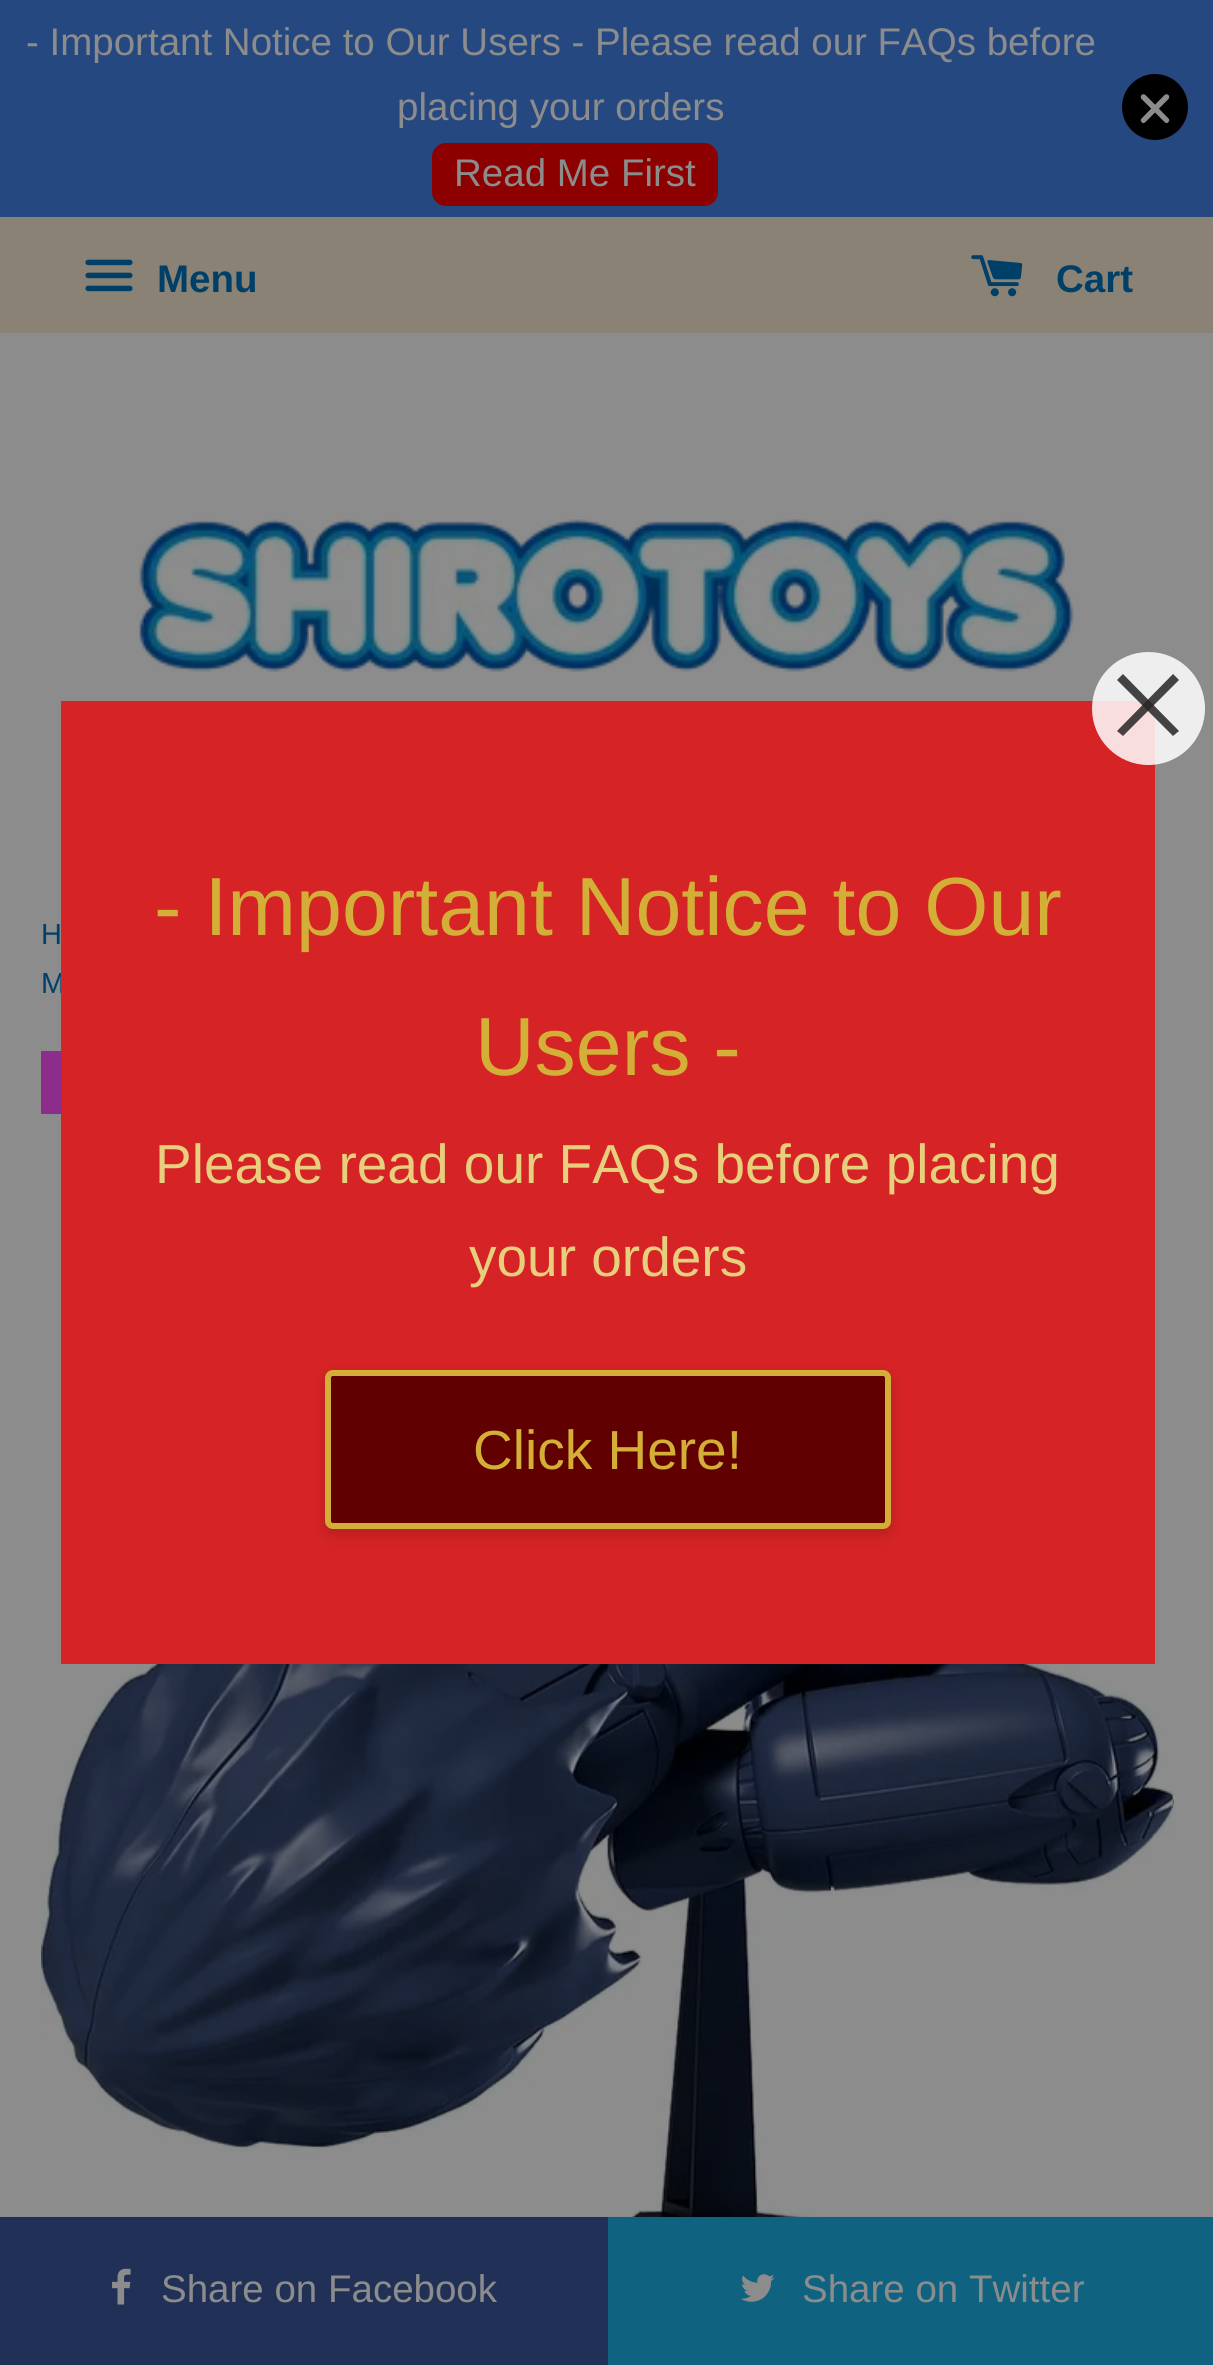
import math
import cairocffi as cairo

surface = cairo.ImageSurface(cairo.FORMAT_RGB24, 1213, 2365)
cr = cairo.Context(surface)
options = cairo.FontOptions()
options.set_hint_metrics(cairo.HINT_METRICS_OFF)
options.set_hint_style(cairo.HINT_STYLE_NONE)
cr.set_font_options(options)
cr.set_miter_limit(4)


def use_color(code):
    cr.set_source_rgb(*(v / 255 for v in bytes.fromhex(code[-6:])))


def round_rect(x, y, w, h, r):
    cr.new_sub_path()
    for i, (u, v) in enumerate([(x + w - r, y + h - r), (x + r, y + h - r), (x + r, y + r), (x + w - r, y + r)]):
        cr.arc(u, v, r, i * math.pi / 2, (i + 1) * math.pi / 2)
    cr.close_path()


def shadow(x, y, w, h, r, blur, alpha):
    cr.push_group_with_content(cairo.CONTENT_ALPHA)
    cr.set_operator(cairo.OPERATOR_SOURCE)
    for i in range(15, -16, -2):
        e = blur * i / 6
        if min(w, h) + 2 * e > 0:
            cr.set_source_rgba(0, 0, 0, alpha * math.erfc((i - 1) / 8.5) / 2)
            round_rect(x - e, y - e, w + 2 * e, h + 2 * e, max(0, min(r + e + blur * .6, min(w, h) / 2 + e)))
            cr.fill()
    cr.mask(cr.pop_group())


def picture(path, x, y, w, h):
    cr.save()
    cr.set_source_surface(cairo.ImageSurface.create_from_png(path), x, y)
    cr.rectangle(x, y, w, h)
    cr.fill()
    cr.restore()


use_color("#8c8c8c")
cr.paint()
use_color("#264880")
cr.rectangle(0, 0, 1213, 217)
cr.fill()
cr.select_font_face("Liberation Sans")
cr.set_font_size(38.5)
use_color("#8c8c8c")
cr.move_to(26, 55)
cr.show_text("- Important Notice to Our Users - Please read our FAQs before")
cr.move_to(397, 120)
cr.show_text("placing your orders")
use_color("#8c0000")
round_rect(432, 143, 286, 63, 14)
cr.fill()
use_color("#8c8c8c")
cr.move_to(454, 186)
cr.show_text("Read Me First")
use_color("#000000")
cr.new_path()
cr.arc(1155, 107, 33, 0, 2 * math.pi)
cr.fill()
use_color("#8c8c8c")
cr.new_path()
cr.move_to(1168.5, 95)
cr.curve_to(1169.5, 96, 1169.5, 98, 1168.5, 99)
cr.line_to(1145.5, 122)
cr.curve_to(1144, 123.5, 1142.5, 123.5, 1141.5, 122)
cr.curve_to(1140.5, 121, 1140.5, 119.5, 1141.5, 118.5)
cr.line_to(1164.5, 95)
cr.curve_to(1166, 94, 1167.5, 94, 1168.5, 95)
cr.close_path()
cr.fill()
cr.new_path()
cr.move_to(1141.5, 95)
cr.curve_to(1142.5, 94, 1144, 94, 1145.5, 95)
cr.line_to(1168.5, 118.5)
cr.curve_to(1169.5, 119.5, 1169.5, 121, 1168.5, 122)
cr.curve_to(1167.5, 123.5, 1166, 123.5, 1164.5, 122)
cr.line_to(1141.5, 99)
cr.curve_to(1140.5, 98, 1140.5, 96, 1141.5, 95)
cr.close_path()
cr.fill()
use_color("#8a8375")
cr.rectangle(0, 217, 1213, 116)
cr.fill()
picture("img1.png", 85, 259, 48, 33)
cr.select_font_face("Liberation Sans", cairo.FONT_SLANT_NORMAL, cairo.FONT_WEIGHT_BOLD)
use_color("#003f67")
cr.move_to(157, 292)
cr.show_text("Menu")
picture("img2.png", 971, 255, 52, 42)
cr.move_to(1056, 292)
cr.show_text("Cart")
picture("img3.png", 139, 519, 935, 153)
cr.select_font_face("Liberation Sans")
cr.set_font_size(29)
cr.move_to(41, 944)
cr.show_text("H")
cr.move_to(41, 993)
cr.show_text("M")
use_color("#8c2d8b")
cr.rectangle(41, 1051, 20, 63)
cr.fill()
picture("img4.png", 41, 1130, 1133, 1087)
use_color("#d62325")
cr.rectangle(61, 701, 1094, 963)
cr.fill()
cr.set_source_rgba(1, 1, 1, 0.85)
cr.arc(1148.5, 708.5, 56.5, 0, 2 * math.pi)
cr.fill()
cr.set_source_rgba(0.149, 0.149, 0.149, 0.85)
cr.new_path()
cr.move_to(1173, 674)
cr.line_to(1179, 680)
cr.line_to(1123, 736)
cr.line_to(1117, 731)
cr.close_path()
cr.fill()
cr.new_path()
cr.move_to(1117, 680)
cr.line_to(1123, 674)
cr.line_to(1179, 731)
cr.line_to(1173, 736)
cr.close_path()
cr.fill()
cr.set_font_size(82.5)
use_color("#d4af37")
cr.move_to(154, 935)
cr.show_text("- Important Notice to Our")
cr.move_to(475, 1075)
cr.show_text("Users -")
cr.set_font_size(55)
use_color("#e8cf7d")
cr.move_to(155, 1183)
cr.show_text("Please read our FAQs before placing")
cr.move_to(469, 1276)
cr.show_text("your orders")
use_color("#000000")
shadow(325, 1375, 566, 160, 8, 7, 0.15)
use_color("#610000")
round_rect(328, 1373, 560, 153, 5)
cr.fill_preserve()
use_color("#d4af37")
cr.set_line_width(6)
cr.stroke()
cr.move_to(473, 1469)
cr.show_text("Click Here!")
use_color("#203056")
cr.rectangle(0, 2217, 608, 148)
cr.fill()
picture("img5.png", 112, 2268, 19, 37)
cr.set_font_size(38.5)
use_color("#8c8c8c")
cr.move_to(161, 2302)
cr.show_text("Share on Facebook")
use_color("#0f6280")
cr.rectangle(608, 2217, 605, 148)
cr.fill()
picture("img6.png", 741, 2274, 34, 28)
use_color("#8c8c8c")
cr.move_to(802, 2302)
cr.show_text("Share on Twitter")
surface.write_to_png("result.png")
